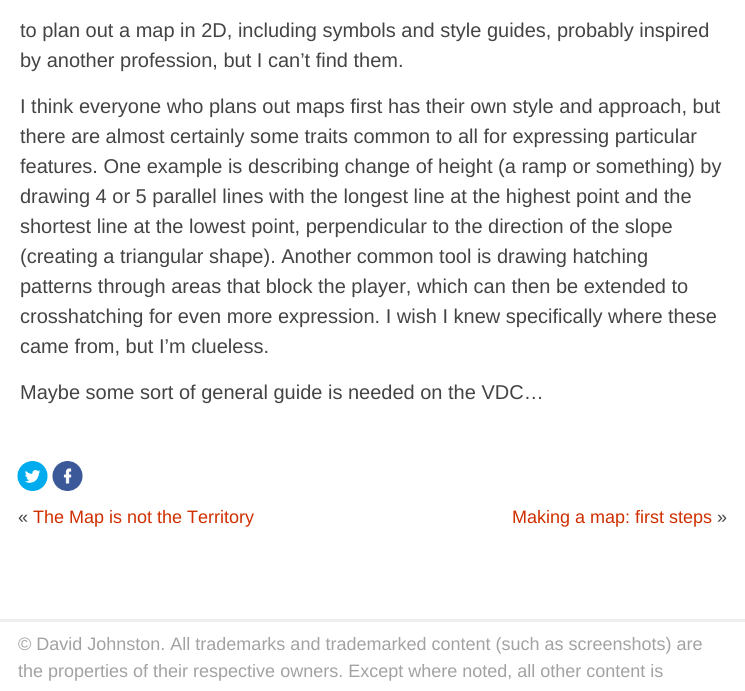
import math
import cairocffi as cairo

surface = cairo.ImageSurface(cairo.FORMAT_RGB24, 745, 691)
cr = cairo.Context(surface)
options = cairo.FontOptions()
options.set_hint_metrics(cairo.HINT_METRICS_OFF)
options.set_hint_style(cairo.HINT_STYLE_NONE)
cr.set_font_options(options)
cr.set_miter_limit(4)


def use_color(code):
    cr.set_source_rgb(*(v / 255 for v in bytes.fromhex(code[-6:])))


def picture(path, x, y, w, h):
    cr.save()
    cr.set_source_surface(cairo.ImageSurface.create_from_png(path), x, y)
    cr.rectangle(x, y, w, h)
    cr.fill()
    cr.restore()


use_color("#ffffff")
cr.paint()
cr.select_font_face("Liberation Sans")
cr.set_font_size(20)
use_color("#444444")
cr.move_to(20, 37)
cr.show_text("to plan out a map in 2D, including symbols and style guides, probably inspired")
cr.move_to(20, 67)
cr.show_text("by another profession, but I can’t find them.")
cr.move_to(20, 113)
cr.show_text("I think everyone who plans out maps first has their own style and approach, but")
cr.move_to(20, 143)
cr.show_text("there are almost certainly some traits common to all for expressing particular")
cr.move_to(20, 173)
cr.show_text("features. One example is describing change of height (a ramp or something) by")
cr.move_to(20, 203)
cr.show_text("drawing 4 or 5 parallel lines with the longest line at the highest point and the")
cr.move_to(20, 233)
cr.show_text("shortest line at the lowest point, perpendicular to the direction of the slope")
cr.move_to(20, 263)
cr.show_text("(creating a triangular shape). Another common tool is drawing hatching")
cr.move_to(20, 293)
cr.show_text("patterns through areas that block the player, which can then be extended to")
cr.move_to(20, 323)
cr.show_text("crosshatching for even more expression. I wish I knew specifically where these")
cr.move_to(20, 353)
cr.show_text("came from, but I’m clueless.")
cr.move_to(20, 399)
cr.show_text("Maybe some sort of general guide is needed on the VDC…")
picture("img1.png", 17, 461, 31, 30)
picture("img2.png", 52, 461, 31, 30)
cr.set_font_size(18)
cr.move_to(18, 523)
cr.show_text("«")
use_color("#cf2f00")
cr.move_to(33, 523)
cr.show_text("The Map is not the Territory")
cr.move_to(512, 523)
cr.show_text("Making a map: first steps")
use_color("#444444")
cr.move_to(717, 523)
cr.show_text("»")
use_color("#eeeeee")
cr.rectangle(0, 619, 745, 3)
cr.fill()
use_color("#a2a2a2")
cr.move_to(18, 650)
cr.show_text("© David Johnston. All trademarks and trademarked content (such as screenshots) are")
cr.move_to(18, 677)
cr.show_text("the properties of their respective owners. Except where noted, all other content is")
surface.write_to_png("result.png")
